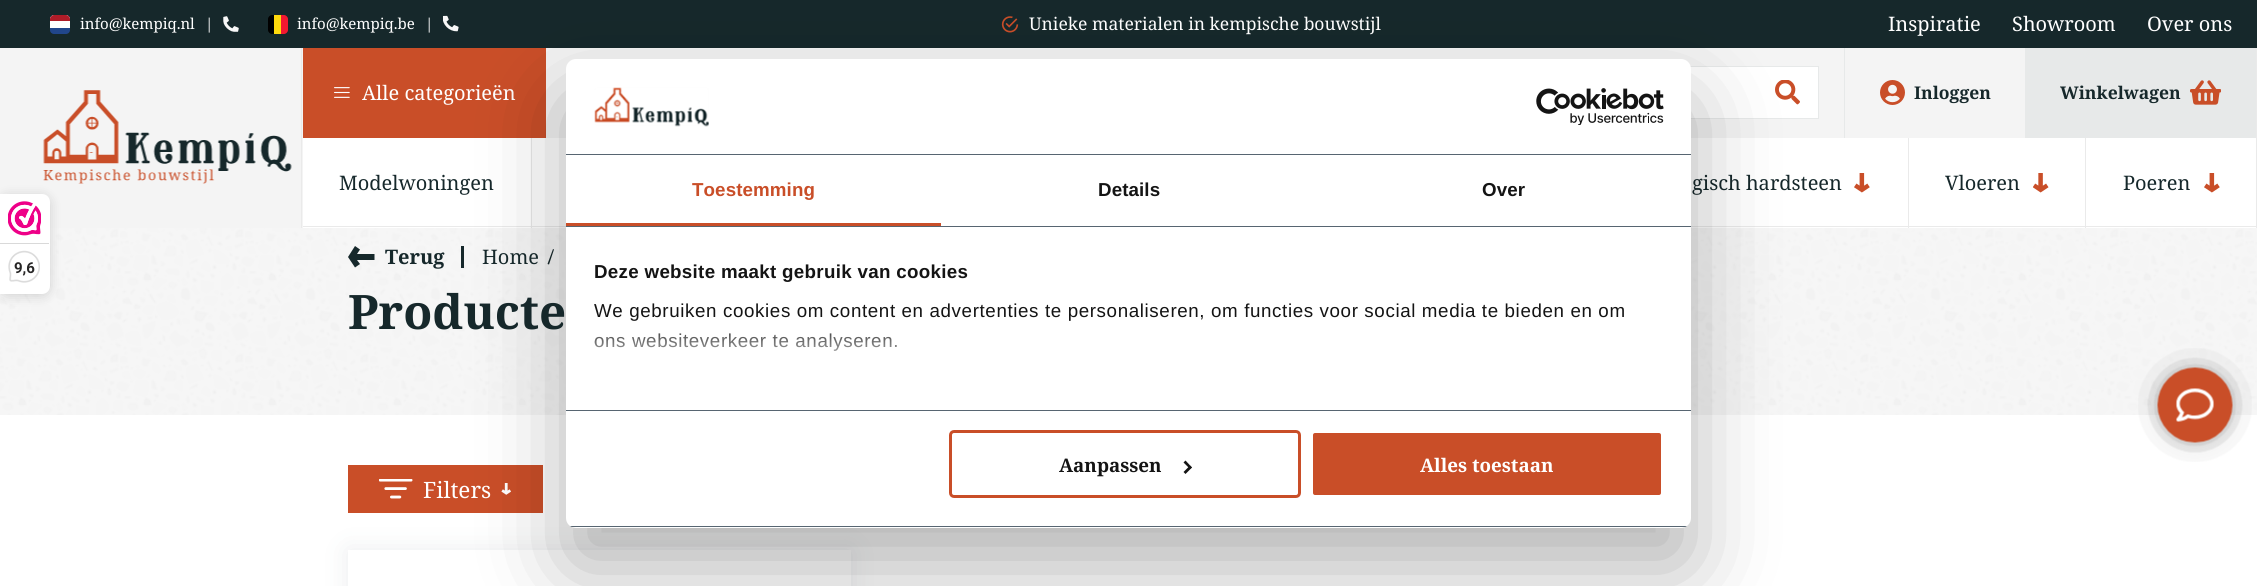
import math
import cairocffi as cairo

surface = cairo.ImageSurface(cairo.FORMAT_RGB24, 2257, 586)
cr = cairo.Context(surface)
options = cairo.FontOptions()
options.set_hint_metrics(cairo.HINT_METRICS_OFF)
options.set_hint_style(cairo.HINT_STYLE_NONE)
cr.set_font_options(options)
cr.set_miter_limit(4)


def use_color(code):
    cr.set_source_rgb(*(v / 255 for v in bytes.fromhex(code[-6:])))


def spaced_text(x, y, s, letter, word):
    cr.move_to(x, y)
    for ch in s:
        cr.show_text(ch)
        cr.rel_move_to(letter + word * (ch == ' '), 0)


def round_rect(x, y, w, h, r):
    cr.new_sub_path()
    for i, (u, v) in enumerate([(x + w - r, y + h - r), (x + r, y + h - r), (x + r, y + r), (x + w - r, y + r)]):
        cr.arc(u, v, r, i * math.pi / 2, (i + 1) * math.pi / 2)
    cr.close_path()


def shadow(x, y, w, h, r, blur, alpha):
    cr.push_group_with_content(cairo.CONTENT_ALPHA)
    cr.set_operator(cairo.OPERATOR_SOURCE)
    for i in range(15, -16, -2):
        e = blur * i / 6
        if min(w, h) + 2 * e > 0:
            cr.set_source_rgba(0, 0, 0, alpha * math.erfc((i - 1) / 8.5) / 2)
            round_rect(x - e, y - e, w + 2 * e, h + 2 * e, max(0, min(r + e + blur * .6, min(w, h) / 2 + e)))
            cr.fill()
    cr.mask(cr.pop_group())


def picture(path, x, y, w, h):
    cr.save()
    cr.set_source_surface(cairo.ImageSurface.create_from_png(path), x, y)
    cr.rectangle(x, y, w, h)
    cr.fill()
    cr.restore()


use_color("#ffffff")
cr.paint()
use_color("#16282b")
cr.rectangle(0, 0, 2257, 48)
cr.fill()
use_color("#21468b")
round_rect(50, 15, 20, 19, 4)
cr.fill()
use_color("#ffffff")
cr.new_path()
cr.move_to(54, 15)
cr.line_to(66, 15)
cr.curve_to(68, 15, 70, 17, 70, 19)
cr.line_to(70, 28)
cr.line_to(50, 28)
cr.line_to(50, 19)
cr.curve_to(50, 17, 52, 15, 54, 15)
cr.close_path()
cr.fill()
use_color("#ae1c28")
cr.new_path()
cr.move_to(54, 15)
cr.line_to(66, 15)
cr.curve_to(68, 15, 70, 17, 70, 19)
cr.line_to(70, 21)
cr.line_to(50, 21)
cr.line_to(50, 19)
cr.curve_to(50, 17, 52, 15, 54, 15)
cr.close_path()
cr.fill()
cr.select_font_face("Noto Serif")
cr.set_font_size(15)
use_color("#ffffff")
cr.move_to(80, 29)
cr.show_text("info@kempiq.nl")
cr.move_to(205, 29)
cr.show_text("|")
picture("img1.png", 223, 16, 16, 16)
use_color("#000000")
cr.new_path()
cr.move_to(272, 15)
cr.line_to(274, 15)
cr.line_to(274, 34)
cr.line_to(272, 34)
cr.curve_to(270, 34, 268, 32, 268, 30)
cr.line_to(268, 19)
cr.curve_to(268, 17, 270, 15, 272, 15)
cr.close_path()
cr.fill()
use_color("#ffd90c")
cr.rectangle(274, 15, 7, 19)
cr.fill()
use_color("#f31830")
cr.new_path()
cr.move_to(281, 15)
cr.line_to(284, 15)
cr.curve_to(286, 15, 288, 17, 288, 19)
cr.line_to(288, 30)
cr.curve_to(288, 32, 286, 34, 284, 34)
cr.line_to(281, 34)
cr.close_path()
cr.fill()
use_color("#ffffff")
cr.move_to(297, 29)
cr.show_text("info@kempiq.be")
cr.move_to(425, 29)
cr.show_text("|")
picture("img2.png", 443, 15, 16, 17)
picture("img3.png", 1001, 16, 18, 17)
cr.set_font_size(17.5)
cr.move_to(1029, 30)
cr.show_text("Unieke materialen in kempische bouwstijl")
cr.set_font_size(20)
cr.move_to(1888, 31)
cr.show_text("Inspiratie")
cr.move_to(2012, 31)
cr.show_text("Showroom")
cr.move_to(2147, 31)
cr.show_text("Over ons")
use_color("#f4f4f4")
cr.rectangle(0, 48, 303, 180)
cr.fill()
use_color("#eaeaea")
cr.rectangle(301, 48, 1, 180)
cr.fill()
picture("img4.png", 43, 90, 249, 94)
cr.rectangle(303, 226, 1954, 1)
cr.fill()
use_color("#c94e28")
cr.rectangle(303, 48, 243, 90)
cr.fill()
picture("img5.png", 334, 87, 16, 11)
use_color("#ffffff")
cr.move_to(362, 100)
cr.show_text("Alle categorieën")
use_color("#eaeaea")
cr.rectangle(531, 138, 1, 90)
cr.fill()
use_color("#16282b")
cr.move_to(339, 190)
cr.show_text("Modelwoningen")
use_color("#eaeaea")
cr.rectangle(1908, 138, 1, 90)
cr.fill()
use_color("#16282b")
cr.move_to(1692, 190)
cr.show_text("gisch hardsteen")
picture("img6.png", 1854, 173, 16, 20)
use_color("#eaeaea")
cr.rectangle(2085, 138, 1, 90)
cr.fill()
use_color("#16282b")
cr.move_to(1945, 190)
cr.show_text("Vloeren")
picture("img7.png", 2033, 173, 16, 20)
use_color("#eaeaea")
cr.rectangle(2256, 138, 1, 90)
cr.fill()
use_color("#16282b")
cr.move_to(2123, 190)
cr.show_text("Poeren")
picture("img6.png", 2204, 173, 16, 20)
use_color("#f4f4f4")
cr.rectangle(546, 48, 1479, 90)
cr.fill()
use_color("#eaeaea")
cr.rectangle(2256, 48, 1, 90)
cr.fill()
use_color("#ffffff")
cr.rectangle(1690, 67, 128, 51)
cr.fill()
cr.rectangle(570.5, 66.5, 1248, 52)
use_color("#e7e9e9")
cr.set_line_width(1)
cr.stroke()
picture("img8.png", 1775, 80, 25, 25)
cr.rectangle(1844, 48, 1, 90)
cr.fill()
picture("img9.png", 1880, 80, 25, 25)
cr.select_font_face("Noto Serif", cairo.FONT_SLANT_NORMAL, cairo.FONT_WEIGHT_BOLD)
cr.set_font_size(17.5)
use_color("#16282b")
cr.move_to(1914, 99)
cr.show_text("Inloggen")
use_color("#e7e9e9")
cr.rectangle(2025, 48, 231, 90)
cr.fill()
use_color("#16282b")
cr.move_to(2060, 99)
cr.show_text("Winkelwagen")
picture("img10.png", 2190, 80, 31, 25)
picture("img13.png", 0, 228, 2257, 187)
cr.set_source_rgba(0.949, 0.949, 0.949, 0.75)
cr.rectangle(0, 228, 2257, 187)
cr.fill()
use_color("#16282b")
cr.rectangle(461, 246, 3, 22)
cr.fill()
cr.new_path()
cr.move_to(553, 249)
cr.line_to(554, 249.5)
cr.line_to(549, 264.5)
cr.line_to(547.5, 264)
cr.close_path()
cr.fill()
use_color("#c94e28")
cr.rectangle(348, 465, 195, 48)
cr.fill()
picture("img17.png", 501, 483, 10, 12)
use_color("#000000")
shadow(566, 99, 1125, 469, 10, 42.5, 0.3)
cr.save()
cr.set_fill_rule(cairo.FILL_RULE_EVEN_ODD)
cr.new_path()
cr.move_to(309, 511)
cr.line_to(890, 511)
cr.line_to(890, 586)
cr.line_to(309, 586)
cr.close_path()
cr.move_to(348, 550)
cr.line_to(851, 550)
cr.line_to(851, 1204)
cr.line_to(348, 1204)
cr.close_path()
cr.clip()
use_color("#2f4650")
shadow(348, 550, 503, 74, 0, 12.5, 0.1)
cr.restore()
use_color("#ffffff")
round_rect(566, 59, 1125, 469, 10)
cr.fill()
use_color("#576571")
cr.rectangle(566, 154, 1125, 1)
cr.fill()
picture("img11.png", 594, 87, 115, 40)
picture("img12.png", 1536, 88, 128, 37)
cr.rectangle(566, 226, 1125, 1)
cr.fill()
use_color("#c94e28")
cr.rectangle(566, 223, 375, 3)
cr.fill()
cr.select_font_face("Liberation Sans", cairo.FONT_SLANT_NORMAL, cairo.FONT_WEIGHT_BOLD)
cr.set_font_size(18.75)
spaced_text(692, 196, "Toestemming", 0.1, 0)
use_color("#141414")
spaced_text(1098, 196, "Details", 0.1, 0)
spaced_text(1482, 196, "Over", 0.1, 0)
use_color("#576571")
cr.rectangle(566, 410, 1125, 1)
cr.fill()
use_color("#141414")
spaced_text(594, 278, "Deze website maakt gebruik van cookies", 0.3, 0)
cr.select_font_face("Liberation Sans")
spaced_text(594, 317, "We gebruiken cookies om content en advertenties te personaliseren, om functies voor social media te bieden en om", 0.62, 0)
spaced_text(594, 347, "ons websiteverkeer te analyseren.", 0.62, 0)
gradient = cairo.LinearGradient(1116, 411, 1116, 319)
gradient.add_color_stop_rgba(0, 1, 1, 1, 1)
gradient.add_color_stop_rgba(0.5, 1, 1, 1, 0.8)
gradient.add_color_stop_rgba(1, 1, 1, 1, 0)
cr.set_source(gradient)
cr.rectangle(595, 320, 476, 31)
cr.fill()
cr.save()
round_rect(566, 59, 1125, 469, 10)
cr.clip()
use_color("#576571")
cr.rectangle(566, 526, 1125, 1)
cr.fill()
cr.restore()
round_rect(950.5, 431.5, 349, 65, 3.5)
use_color("#c94e28")
cr.set_line_width(3)
cr.stroke()
cr.select_font_face("Noto Serif", cairo.FONT_SLANT_NORMAL, cairo.FONT_WEIGHT_BOLD)
use_color("#141414")
cr.move_to(1059, 472)
cr.show_text("Aanpassen")
cr.new_path()
cr.move_to(1185.5, 460.5)
cr.line_to(1192, 467.5)
cr.line_to(1190, 469)
cr.line_to(1183.5, 462.5)
cr.close_path()
cr.fill()
cr.new_path()
cr.move_to(1190, 465.5)
cr.line_to(1192, 467.5)
cr.line_to(1185.5, 474)
cr.line_to(1183.5, 472)
cr.close_path()
cr.fill()
use_color("#c94e28")
round_rect(1311.5, 431.5, 351, 65, 3.5)
cr.fill_preserve()
use_color("#ffffff")
cr.stroke()
cr.move_to(1420, 472)
cr.show_text("Alles toestaan")
use_color("#000000")
shadow(0, 196, 50, 100, 8, 6, 0.15)
use_color("#ffffff")
cr.new_path()
cr.move_to(0, 194)
cr.line_to(42, 194)
cr.curve_to(46.5, 194, 50, 197.5, 50, 202)
cr.line_to(50, 286)
cr.curve_to(50, 290.5, 46.5, 294, 42, 294)
cr.line_to(0, 294)
cr.close_path()
cr.fill()
picture("img14.png", 8, 201, 33, 35)
use_color("#d9d9d9")
cr.rectangle(0, 243, 49, 1)
cr.fill()
picture("img15.png", 8, 250, 32, 33)
cr.select_font_face("Roboto", cairo.FONT_SLANT_NORMAL, cairo.FONT_WEIGHT_BOLD)
cr.set_font_size(15)
use_color("#272626")
cr.move_to(14, 273)
cr.show_text("9,6")
use_color("#16282b")
cr.new_path()
cr.move_to(374.5, 260)
cr.line_to(357, 260)
cr.line_to(360, 264)
cr.line_to(355, 267.5)
cr.line_to(348, 257)
cr.line_to(355, 246)
cr.line_to(360, 249.5)
cr.line_to(357, 254)
cr.line_to(374.5, 254)
cr.close_path()
cr.fill()
cr.select_font_face("Noto Serif", cairo.FONT_SLANT_NORMAL, cairo.FONT_WEIGHT_BOLD)
cr.set_font_size(20)
cr.move_to(385, 264)
cr.show_text("Terug")
cr.select_font_face("Noto Serif")
cr.move_to(482, 264)
cr.show_text("Home")
cr.select_font_face("Noto Serif", cairo.FONT_SLANT_NORMAL, cairo.FONT_WEIGHT_BOLD)
cr.set_font_size(47.5)
cr.move_to(348, 329)
cr.show_text("Producte")
picture("img16.png", 379, 479, 34, 20)
cr.select_font_face("Noto Serif")
cr.set_font_size(22.5)
use_color("#ffffff")
cr.move_to(423, 498)
cr.show_text("Filters")
picture("img18.png", 2138, 348, 114, 114)
surface.write_to_png("result.png")
